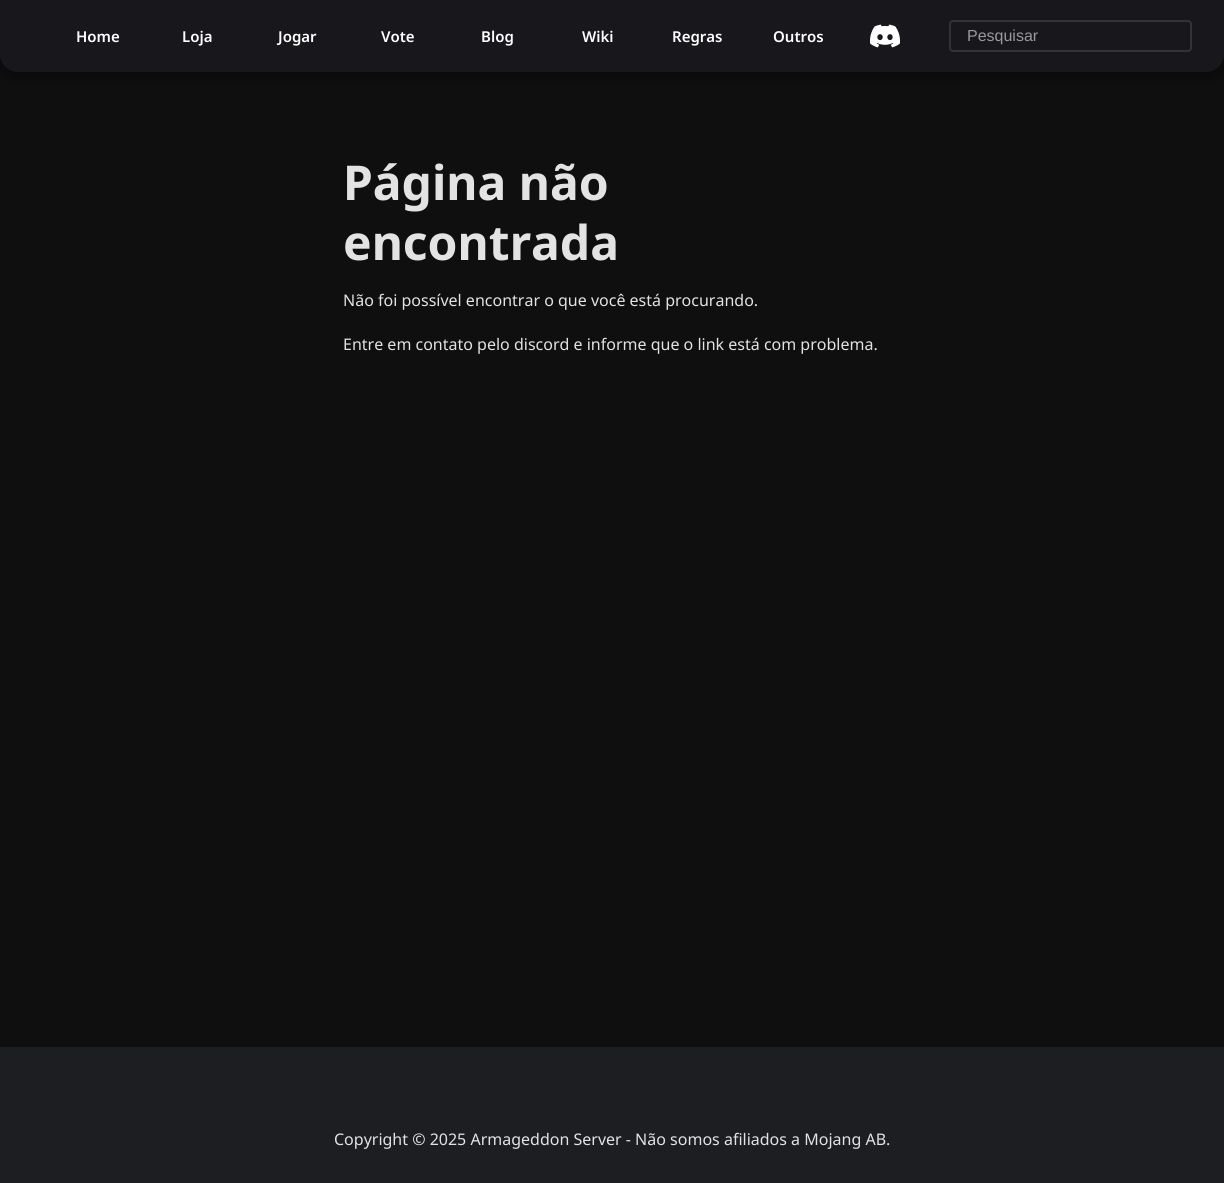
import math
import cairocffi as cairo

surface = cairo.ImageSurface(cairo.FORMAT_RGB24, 1224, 1183)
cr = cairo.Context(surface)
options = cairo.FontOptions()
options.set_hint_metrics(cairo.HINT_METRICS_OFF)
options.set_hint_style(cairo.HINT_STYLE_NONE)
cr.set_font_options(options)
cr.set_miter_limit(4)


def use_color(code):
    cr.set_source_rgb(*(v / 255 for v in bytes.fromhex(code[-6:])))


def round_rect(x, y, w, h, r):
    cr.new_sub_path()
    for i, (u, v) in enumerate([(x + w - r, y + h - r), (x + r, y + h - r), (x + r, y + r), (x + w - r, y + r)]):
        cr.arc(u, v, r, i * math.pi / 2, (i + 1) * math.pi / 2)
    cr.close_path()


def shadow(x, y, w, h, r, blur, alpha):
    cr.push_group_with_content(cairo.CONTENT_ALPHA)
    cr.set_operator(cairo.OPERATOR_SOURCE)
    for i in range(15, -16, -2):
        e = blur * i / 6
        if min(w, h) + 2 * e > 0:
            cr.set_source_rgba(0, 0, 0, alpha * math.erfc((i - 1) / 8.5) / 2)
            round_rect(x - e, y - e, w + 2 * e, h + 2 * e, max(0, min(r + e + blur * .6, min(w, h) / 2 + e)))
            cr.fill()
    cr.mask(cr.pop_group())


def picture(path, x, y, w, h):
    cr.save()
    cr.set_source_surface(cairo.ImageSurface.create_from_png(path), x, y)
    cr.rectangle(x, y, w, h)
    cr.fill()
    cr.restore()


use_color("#0f0f0f")
cr.paint()
use_color("#000000")
shadow(0, 2, 1224, 72, 18, 8, 0.67)
use_color("#18181c")
cr.new_path()
cr.move_to(0, 0)
cr.line_to(1224, 0)
cr.line_to(1224, 54)
cr.curve_to(1224, 64, 1216, 72, 1206, 72)
cr.line_to(18, 72)
cr.curve_to(8, 72, 0, 64, 0, 54)
cr.close_path()
cr.fill()
cr.select_font_face("Noto Sans SemiBold")
cr.set_font_size(15)
use_color("#ffffff")
cr.move_to(76, 42)
cr.show_text("Home")
cr.move_to(182, 42)
cr.show_text("Loja")
cr.move_to(278, 42)
cr.show_text("Jogar")
cr.move_to(381, 42)
cr.show_text("Vote")
cr.move_to(481, 42)
cr.show_text("Blog")
cr.move_to(582, 42)
cr.show_text("Wiki")
cr.move_to(672, 42)
cr.show_text("Regras")
cr.move_to(773, 42)
cr.show_text("Outros")
picture("img1.png", 870, 24, 30, 24)
round_rect(950, 21, 241, 30, 3)
use_color("#333333")
cr.stroke()
cr.select_font_face("Liberation Sans")
cr.set_font_size(16)
use_color("#999999")
cr.move_to(967, 41)
cr.show_text("Pesquisar")
cr.select_font_face("Noto Sans", cairo.FONT_SLANT_NORMAL, cairo.FONT_WEIGHT_BOLD)
cr.set_font_size(48)
use_color("#e3e3e3")
cr.move_to(343, 200)
cr.show_text("Página não")
cr.move_to(343, 260)
cr.show_text("encontrada")
cr.select_font_face("Noto Sans")
cr.set_font_size(16)
cr.move_to(343, 306)
cr.show_text("Não foi possível encontrar o que você está procurando.")
cr.move_to(343, 350)
cr.show_text("Entre em contato pelo discord e informe que o link está com problema.")
use_color("#1c1e21")
cr.rectangle(0, 1047, 1224, 136)
cr.fill()
use_color("#e3e3e3")
cr.move_to(334, 1145)
cr.show_text("Copyright © 2025 Armageddon Server - Não somos afiliados a Mojang AB.")
surface.write_to_png("result.png")
